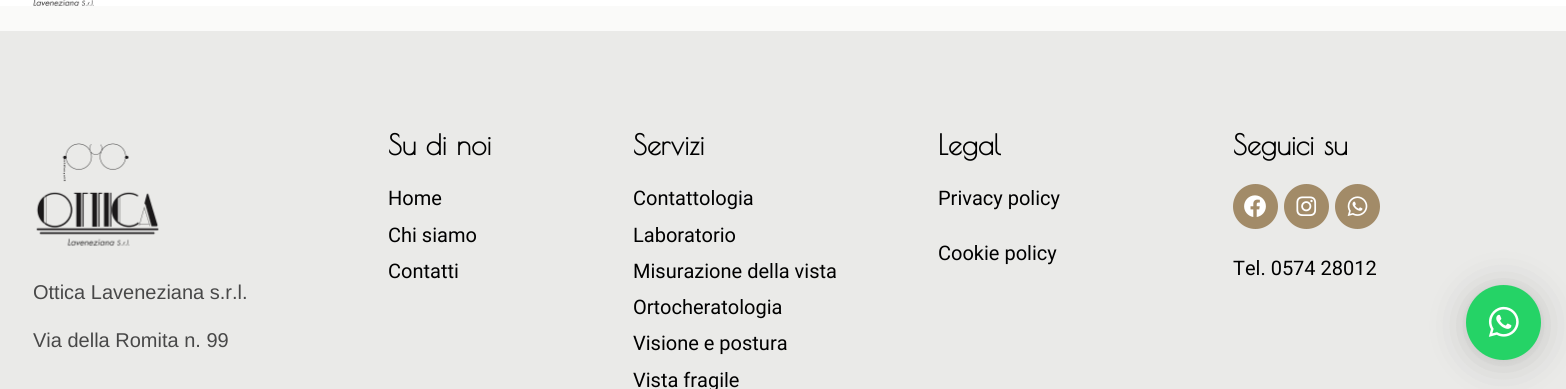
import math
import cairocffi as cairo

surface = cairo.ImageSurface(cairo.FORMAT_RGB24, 1566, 389)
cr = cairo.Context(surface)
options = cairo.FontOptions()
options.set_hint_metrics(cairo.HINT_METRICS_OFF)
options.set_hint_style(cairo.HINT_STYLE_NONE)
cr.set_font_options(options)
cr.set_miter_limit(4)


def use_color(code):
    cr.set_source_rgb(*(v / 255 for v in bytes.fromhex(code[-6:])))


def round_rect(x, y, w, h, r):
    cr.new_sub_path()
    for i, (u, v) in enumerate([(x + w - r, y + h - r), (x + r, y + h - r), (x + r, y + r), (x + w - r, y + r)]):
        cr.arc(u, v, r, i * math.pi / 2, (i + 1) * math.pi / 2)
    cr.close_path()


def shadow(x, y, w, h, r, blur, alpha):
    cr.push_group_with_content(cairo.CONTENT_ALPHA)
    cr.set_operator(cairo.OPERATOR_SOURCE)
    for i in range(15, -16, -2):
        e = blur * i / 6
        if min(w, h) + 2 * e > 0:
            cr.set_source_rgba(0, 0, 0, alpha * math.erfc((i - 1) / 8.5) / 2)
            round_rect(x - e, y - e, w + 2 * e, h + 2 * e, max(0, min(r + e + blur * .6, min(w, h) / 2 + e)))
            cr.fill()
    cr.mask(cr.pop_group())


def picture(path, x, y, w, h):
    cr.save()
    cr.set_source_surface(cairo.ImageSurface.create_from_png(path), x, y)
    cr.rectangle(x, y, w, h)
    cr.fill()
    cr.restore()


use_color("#ffffff")
cr.paint()
picture("img1.png", 33, 0, 61, 6)
use_color("#eaeae8")
cr.rectangle(0, 31, 1566, 358)
cr.fill()
use_color("#fafaf9")
cr.rectangle(0, 6, 1566, 25)
cr.fill()
cr.select_font_face("Poiret One", cairo.FONT_SLANT_NORMAL, cairo.FONT_WEIGHT_BOLD)
cr.set_font_size(28)
use_color("#000000")
cr.move_to(388, 155)
cr.show_text("Su di noi")
cr.select_font_face("Roboto")
cr.set_font_size(20)
cr.move_to(388, 205)
cr.show_text("Home")
cr.move_to(388, 242)
cr.show_text("Chi siamo")
cr.move_to(388, 278)
cr.show_text("Contatti")
cr.select_font_face("Poiret One", cairo.FONT_SLANT_NORMAL, cairo.FONT_WEIGHT_BOLD)
cr.set_font_size(28)
cr.move_to(633, 155)
cr.show_text("Servizi")
cr.select_font_face("Roboto")
cr.set_font_size(20)
cr.move_to(633, 205)
cr.show_text("Contattologia")
cr.move_to(633, 242)
cr.show_text("Laboratorio")
cr.move_to(633, 278)
cr.show_text("Misurazione della vista")
cr.move_to(633, 314)
cr.show_text("Ortocheratologia")
cr.move_to(633, 350)
cr.show_text("Visione e postura")
cr.move_to(633, 387)
cr.show_text("Vista fragile")
cr.select_font_face("Poiret One", cairo.FONT_SLANT_NORMAL, cairo.FONT_WEIGHT_BOLD)
cr.set_font_size(28)
cr.move_to(938, 155)
cr.show_text("Legal")
cr.select_font_face("Roboto")
cr.set_font_size(20)
cr.move_to(938, 205)
cr.show_text("Privacy policy")
cr.move_to(938, 260)
cr.show_text("Cookie policy")
cr.select_font_face("Poiret One", cairo.FONT_SLANT_NORMAL, cairo.FONT_WEIGHT_BOLD)
cr.set_font_size(28)
cr.move_to(1233, 155)
cr.show_text("Seguici su")
use_color("#a28b68")
cr.new_path()
cr.arc(1255.5, 206.5, 22.5, 0, 2 * math.pi)
cr.fill()
picture("img2.png", 1244, 195, 22, 22)
cr.arc(1306.5, 206.5, 22.5, 0, 2 * math.pi)
cr.fill()
picture("img3.png", 1296, 196, 21, 20)
cr.arc(1357.5, 206.5, 22.5, 0, 2 * math.pi)
cr.fill()
picture("img4.png", 1347, 196, 21, 20)
cr.select_font_face("Roboto")
cr.set_font_size(20)
use_color("#000000")
cr.move_to(1233, 275)
cr.show_text("Tel. 0574 28012")
picture("img5.png", 36, 143, 123, 103)
cr.select_font_face("Liberation Sans")
use_color("#484848")
cr.move_to(33, 299)
cr.show_text("Ottica Laveneziana s.r.l.")
cr.move_to(33, 347)
cr.show_text("Via della Romita n. 99")
use_color("#000000")
shadow(1466, 288, 75, 75, 37.5, 20, 0.16)
shadow(1466, 286, 75, 75, 37.5, 4, 0.06)
use_color("#25d366")
cr.arc(1503.5, 322.5, 37.5, 0, 2 * math.pi)
cr.fill()
picture("img6.png", 1488, 306, 31, 31)
surface.write_to_png("result.png")
